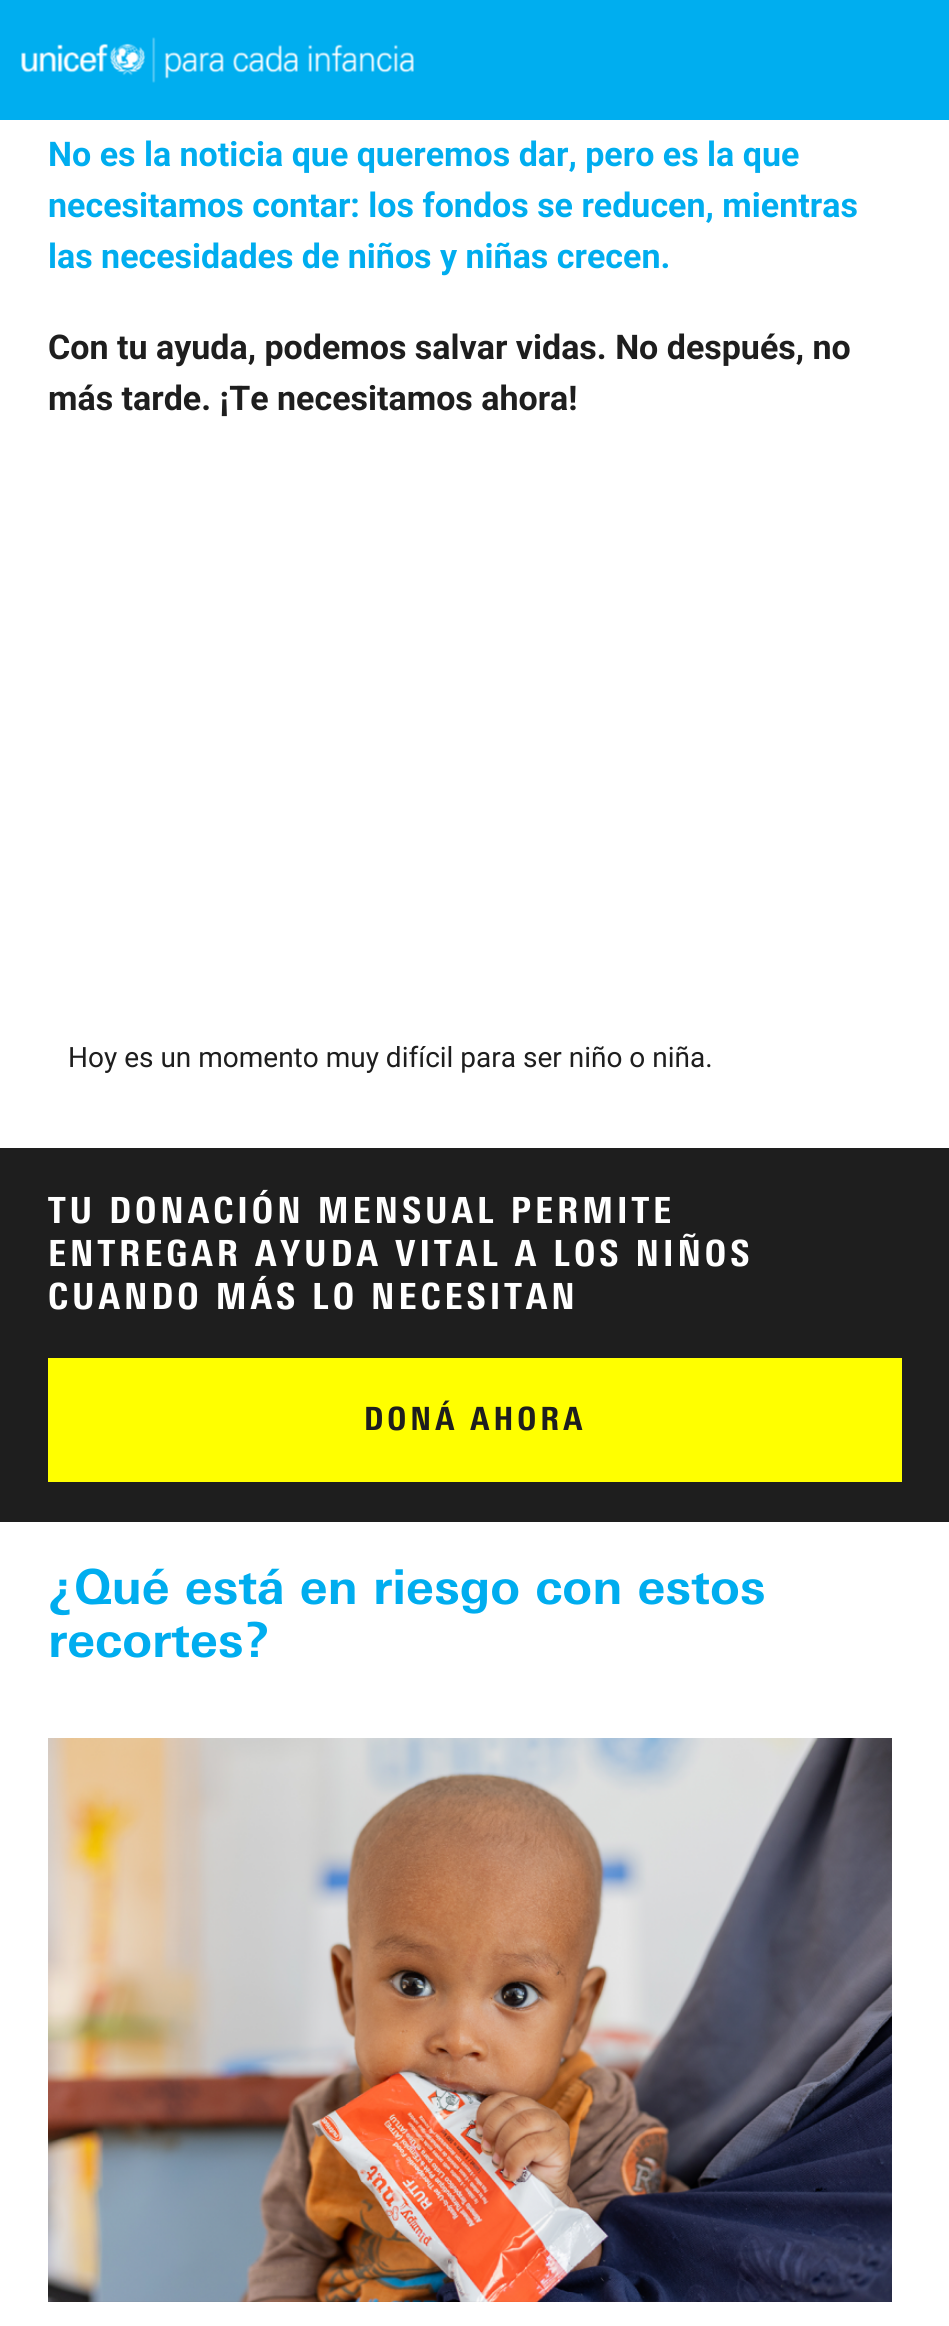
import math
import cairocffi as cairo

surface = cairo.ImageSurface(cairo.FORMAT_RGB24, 949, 2326)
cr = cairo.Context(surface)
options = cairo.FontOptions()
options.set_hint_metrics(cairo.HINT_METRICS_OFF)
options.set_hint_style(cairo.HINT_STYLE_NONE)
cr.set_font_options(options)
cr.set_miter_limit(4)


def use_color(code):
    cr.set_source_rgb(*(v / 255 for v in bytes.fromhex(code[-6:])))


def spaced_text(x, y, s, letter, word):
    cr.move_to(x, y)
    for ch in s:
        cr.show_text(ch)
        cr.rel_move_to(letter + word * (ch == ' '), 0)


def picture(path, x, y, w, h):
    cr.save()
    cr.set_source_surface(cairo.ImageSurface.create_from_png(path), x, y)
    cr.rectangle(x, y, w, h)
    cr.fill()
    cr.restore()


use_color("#ffffff")
cr.paint()
use_color("#00aeef")
cr.rectangle(0, 0, 949, 120)
cr.fill()
picture("img1.png", 21, 37, 393, 46)
cr.select_font_face("Roboto", cairo.FONT_SLANT_NORMAL, cairo.FONT_WEIGHT_BOLD)
cr.set_font_size(34)
use_color("#00adef")
cr.move_to(48, 166)
cr.show_text("No es la noticia que queremos dar, pero es la que")
cr.move_to(48, 217)
cr.show_text("necesitamos contar: los fondos se reducen, mientras")
cr.move_to(48, 268)
cr.show_text("las necesidades de niños y niñas crecen.")
use_color("#1e1e1e")
cr.move_to(48, 359)
cr.show_text("Con tu ayuda, podemos salvar vidas. No después, no")
cr.move_to(48, 410)
cr.show_text("más tarde. ¡Te necesitamos ahora!")
cr.select_font_face("Roboto")
cr.set_font_size(28)
cr.move_to(68, 1067)
cr.show_text("Hoy es un momento muy difícil para ser niño o niña.")
cr.rectangle(0, 1148, 949, 374)
cr.fill()
cr.select_font_face("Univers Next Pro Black")
cr.set_font_size(36)
use_color("#ffffff")
spaced_text(48, 1223, "TU DONACIÓN MENSUAL PERMITE", 4, 0)
spaced_text(48, 1266, "ENTREGAR AYUDA VITAL A LOS NIÑOS", 4, 0)
spaced_text(48, 1309, "CUANDO MÁS LO NECESITAN", 4, 0)
use_color("#ffff00")
cr.rectangle(48, 1358, 854, 124)
cr.fill()
cr.set_font_size(32)
use_color("#1e1e1e")
spaced_text(364, 1430, "DONÁ AHORA", 4, 0)
cr.select_font_face("Univers Next Pro", cairo.FONT_SLANT_NORMAL, cairo.FONT_WEIGHT_BOLD)
cr.set_font_size(48)
use_color("#00adef")
cr.move_to(48, 1604)
cr.show_text("¿Qué está en riesgo con estos")
cr.move_to(48, 1657)
cr.show_text("recortes?")
picture("img2.png", 48, 1738, 844, 564)
surface.write_to_png("result.png")
